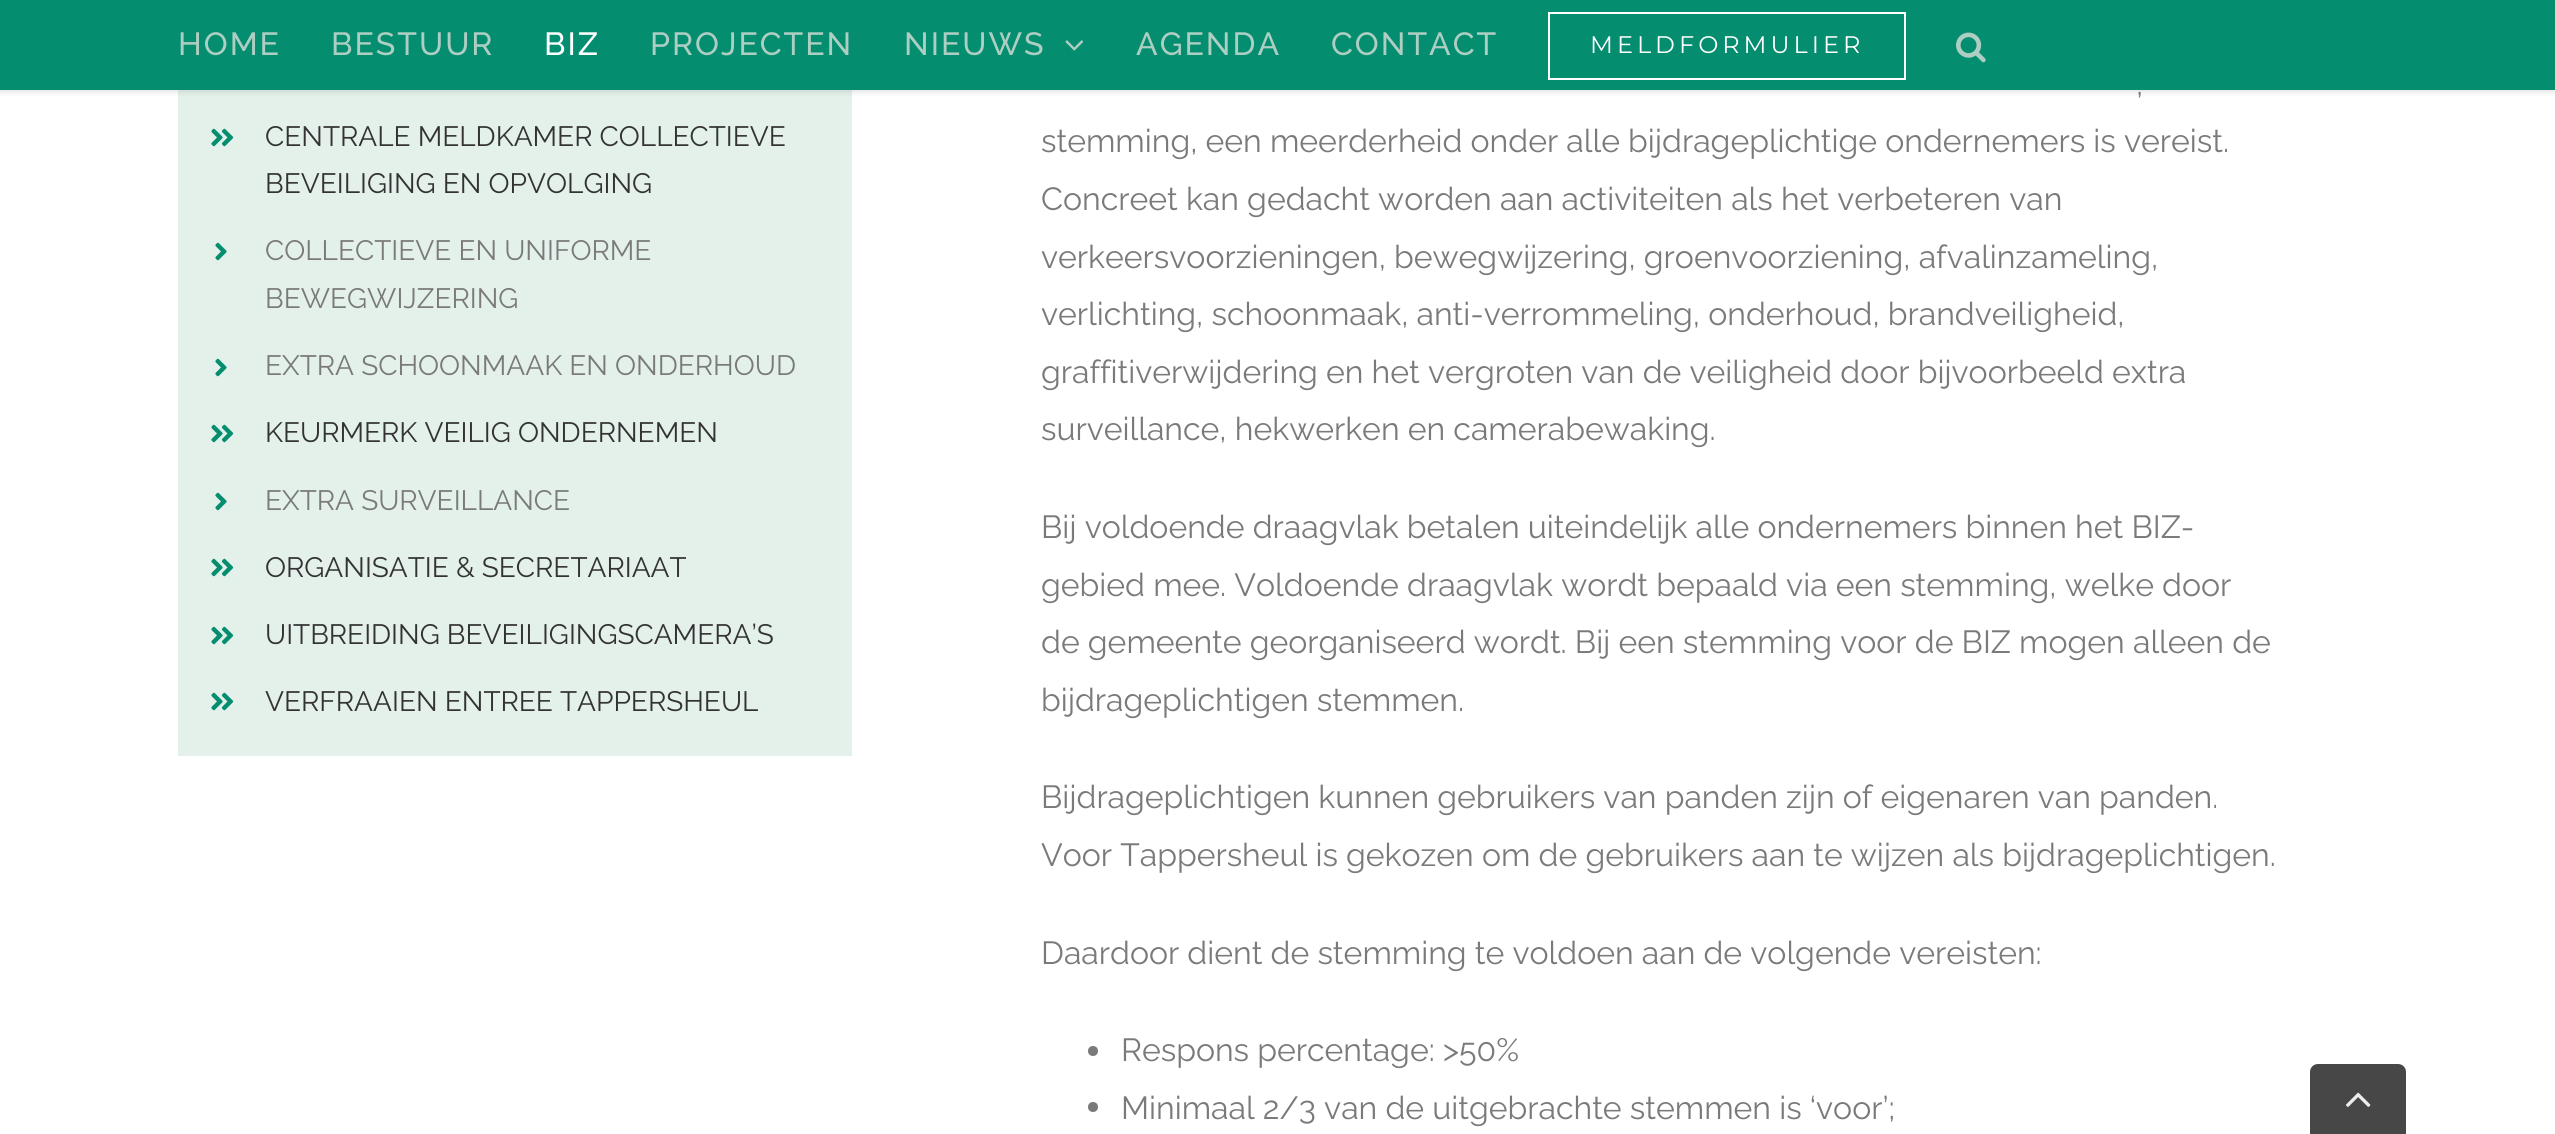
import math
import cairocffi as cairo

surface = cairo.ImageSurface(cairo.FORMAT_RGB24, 2555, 1134)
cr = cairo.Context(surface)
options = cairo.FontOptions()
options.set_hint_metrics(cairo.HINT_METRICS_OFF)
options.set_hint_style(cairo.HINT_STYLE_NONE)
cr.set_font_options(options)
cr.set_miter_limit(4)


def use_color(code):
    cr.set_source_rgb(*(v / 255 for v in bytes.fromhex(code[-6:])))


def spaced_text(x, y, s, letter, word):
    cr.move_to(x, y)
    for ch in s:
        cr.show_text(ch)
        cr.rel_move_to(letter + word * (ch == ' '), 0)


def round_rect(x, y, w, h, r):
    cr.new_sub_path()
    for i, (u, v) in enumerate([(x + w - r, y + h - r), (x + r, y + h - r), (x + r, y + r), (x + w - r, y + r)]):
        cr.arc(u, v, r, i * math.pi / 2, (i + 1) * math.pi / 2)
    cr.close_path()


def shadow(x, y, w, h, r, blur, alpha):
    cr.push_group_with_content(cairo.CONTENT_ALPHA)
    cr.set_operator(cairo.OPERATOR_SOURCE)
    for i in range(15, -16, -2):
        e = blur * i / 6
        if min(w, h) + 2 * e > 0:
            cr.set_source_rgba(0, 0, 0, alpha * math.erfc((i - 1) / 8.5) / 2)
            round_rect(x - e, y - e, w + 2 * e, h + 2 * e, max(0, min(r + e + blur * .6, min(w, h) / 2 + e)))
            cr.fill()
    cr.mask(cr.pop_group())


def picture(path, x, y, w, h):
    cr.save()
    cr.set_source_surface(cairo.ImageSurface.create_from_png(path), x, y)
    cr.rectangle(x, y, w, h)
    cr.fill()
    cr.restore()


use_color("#ffffff")
cr.paint()
use_color("#e4f1eb")
cr.rectangle(178, 90, 674, 666)
cr.fill()
use_color("#000000")
shadow(0, 2, 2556, 90, 0, 3, 0.12)
use_color("#058d70")
cr.rectangle(0, 0, 2555, 90)
cr.fill()
cr.select_font_face("Raleway Medium")
cr.set_font_size(32)
use_color("#adcec2")
spaced_text(178, 55, "HOME", 2, 0)
spaced_text(331, 55, "BESTUUR", 2, 0)
use_color("#ffffff")
spaced_text(544, 55, "BIZ", 2, 0)
use_color("#adcec2")
spaced_text(650, 55, "PROJECTEN", 2, 0)
spaced_text(904, 55, "NIEUWS", 2, 0)
picture("img1.png", 1065, 40, 19, 11)
spaced_text(1136, 55, "AGENDA", 2, 0)
spaced_text(1331, 55, "CONTACT", 2, 0)
cr.rectangle(1549, 13, 356, 66)
use_color("#ffffff")
cr.stroke()
cr.select_font_face("Montserrat Thin")
cr.set_font_size(24)
spaced_text(1590, 53, "MELDFORMULIER", 4, 0)
picture("img2.png", 1956, 32, 30, 31)
picture("img3.png", 211, 128, 23, 19)
cr.select_font_face("Raleway")
cr.set_font_size(28)
use_color("#333333")
cr.move_to(265, 146)
cr.show_text("CENTRALE MELDKAMER COLLECTIEVE")
cr.move_to(265, 193)
cr.show_text("BEVEILIGING EN OPVOLGING")
picture("img4.png", 215, 242, 12, 19)
use_color("#797a79")
cr.move_to(265, 260)
cr.show_text("COLLECTIEVE EN UNIFORME")
cr.move_to(265, 308)
cr.show_text("BEWEGWIJZERING")
picture("img4.png", 215, 358, 12, 19)
cr.move_to(265, 375)
cr.show_text("EXTRA SCHOONMAAK EN ONDERHOUD")
picture("img3.png", 211, 424, 23, 19)
use_color("#333333")
cr.move_to(265, 442)
cr.show_text("KEURMERK VEILIG ONDERNEMEN")
picture("img4.png", 215, 492, 12, 19)
use_color("#797a79")
cr.move_to(265, 510)
cr.show_text("EXTRA SURVEILLANCE")
picture("img3.png", 211, 558, 23, 19)
use_color("#333333")
cr.move_to(265, 577)
cr.show_text("ORGANISATIE & SECRETARIAAT")
picture("img3.png", 211, 626, 23, 19)
cr.move_to(265, 644)
cr.show_text("UITBREIDING BEVEILIGINGSCAMERA’S")
picture("img3.png", 211, 692, 23, 19)
cr.move_to(265, 711)
cr.show_text("VERFRAAIEN ENTREE TAPPERSHEUL")
cr.set_font_size(32)
use_color("#797a79")
cr.move_to(2136, 95)
cr.show_text(",")
cr.move_to(1041, 152)
cr.show_text("stemming, een meerderheid onder alle bijdrageplichtige ondernemers is vereist.")
cr.move_to(1041, 210)
cr.show_text("Concreet kan gedacht worden aan activiteiten als het verbeteren van")
cr.move_to(1041, 268)
cr.show_text("verkeersvoorzieningen, bewegwijzering, groenvoorziening, afvalinzameling,")
cr.move_to(1041, 325)
cr.show_text("verlichting, schoonmaak, anti-verrommeling, onderhoud, brandveiligheid,")
cr.move_to(1041, 383)
cr.show_text("graffitiverwijdering en het vergroten van de veiligheid door bijvoorbeeld extra")
cr.move_to(1041, 440)
cr.show_text("surveillance, hekwerken en camerabewaking.")
cr.move_to(1041, 538)
cr.show_text("Bij voldoende draagvlak betalen uiteindelijk alle ondernemers binnen het BIZ-")
cr.move_to(1041, 596)
cr.show_text("gebied mee. Voldoende draagvlak wordt bepaald via een stemming, welke door")
cr.move_to(1041, 653)
cr.show_text("de gemeente georganiseerd wordt. Bij een stemming voor de BIZ mogen alleen de")
cr.move_to(1041, 711)
cr.show_text("bijdrageplichtigen stemmen.")
cr.move_to(1041, 808)
cr.show_text("Bijdrageplichtigen kunnen gebruikers van panden zijn of eigenaren van panden.")
cr.move_to(1041, 866)
cr.show_text("Voor Tappersheul is gekozen om de gebruikers aan te wijzen als bijdrageplichtigen.")
cr.move_to(1041, 964)
cr.show_text("Daardoor dient de stemming te voldoen aan de volgende vereisten:")
cr.new_path()
cr.arc(1093, 1051, 5, 0, 2 * math.pi)
cr.fill()
cr.move_to(1121, 1061)
cr.show_text("Respons percentage: >50%")
cr.new_path()
cr.arc(1093, 1107, 5, 0, 2 * math.pi)
cr.fill()
cr.move_to(1121, 1119)
cr.show_text("Minimaal 2/3 van de uitgebrachte stemmen is ‘voor’;")
use_color("#474747")
cr.new_path()
cr.move_to(2318, 1064)
cr.line_to(2398, 1064)
cr.curve_to(2402.5, 1064, 2406, 1067.5, 2406, 1072)
cr.line_to(2406, 1134)
cr.line_to(2310, 1134)
cr.line_to(2310, 1072)
cr.curve_to(2310, 1067.5, 2313.5, 1064, 2318, 1064)
cr.close_path()
cr.fill()
picture("img5.png", 2346, 1092, 25, 15)
surface.write_to_png("result.png")
